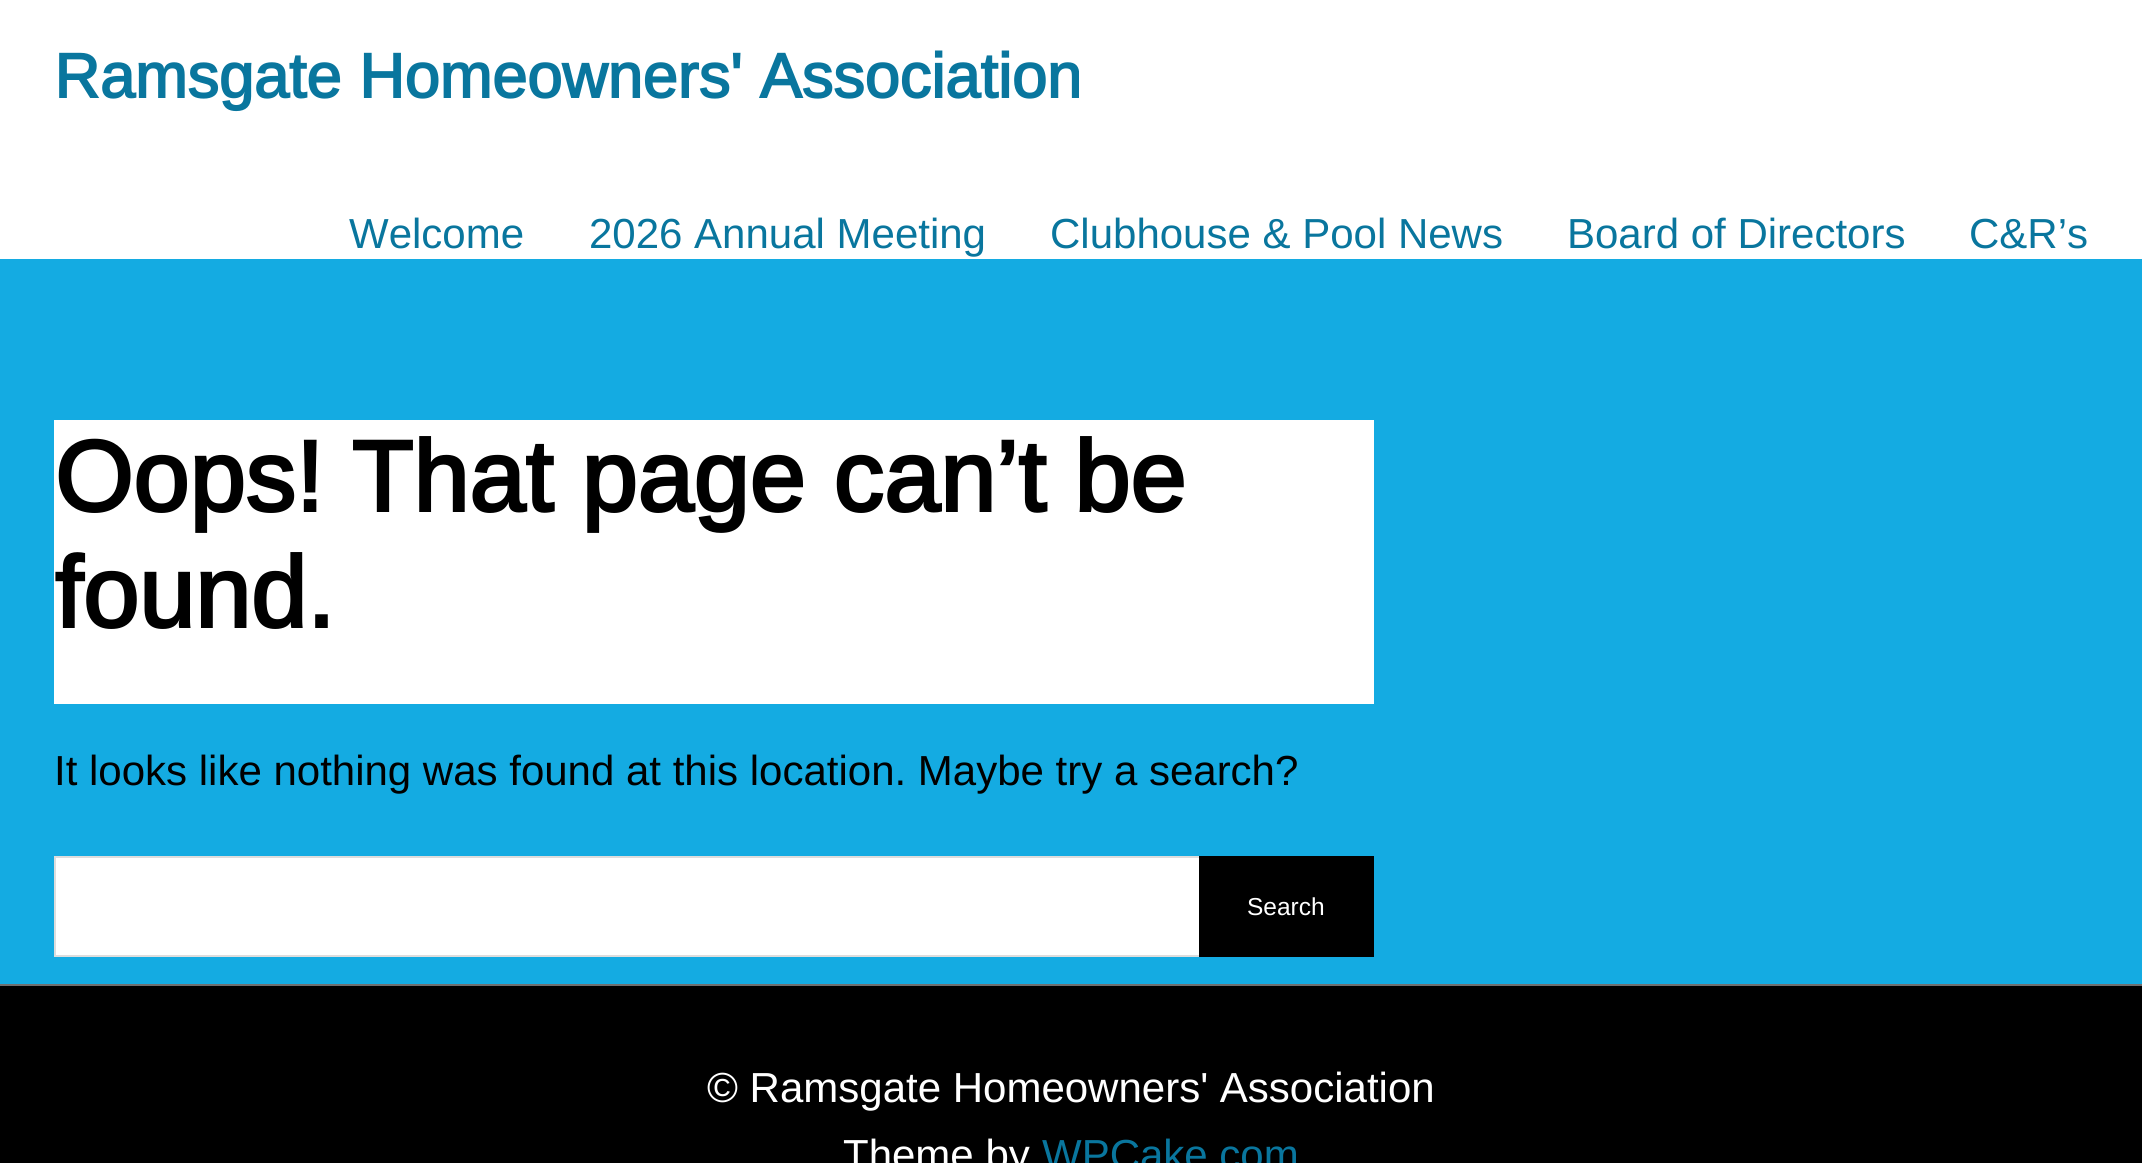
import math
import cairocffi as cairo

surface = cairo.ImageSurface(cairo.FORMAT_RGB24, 2142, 1163)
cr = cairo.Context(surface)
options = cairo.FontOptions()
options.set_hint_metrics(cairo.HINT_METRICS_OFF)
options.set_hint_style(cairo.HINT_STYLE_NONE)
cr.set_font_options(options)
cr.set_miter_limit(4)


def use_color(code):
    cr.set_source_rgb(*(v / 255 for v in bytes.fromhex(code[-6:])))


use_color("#14abe2")
cr.paint()
use_color("#ffffff")
cr.rectangle(0, 0, 2142, 259)
cr.fill()
cr.select_font_face("Arimo", cairo.FONT_SLANT_NORMAL, cairo.FONT_WEIGHT_BOLD)
cr.set_font_size(63)
use_color("#09769e")
cr.move_to(54, 98)
cr.show_text("Ramsgate Homeowners' Association")
cr.select_font_face("Arimo")
cr.set_font_size(42)
cr.move_to(349, 248)
cr.show_text("Welcome")
cr.move_to(589, 248)
cr.show_text("2026 Annual Meeting")
cr.move_to(1050, 248)
cr.show_text("Clubhouse & Pool News")
cr.move_to(1567, 248)
cr.show_text("Board of Directors")
cr.move_to(1969, 248)
cr.show_text("C&R’s")
use_color("#ffffff")
cr.rectangle(54, 420, 1320, 284)
cr.fill()
cr.select_font_face("Arimo", cairo.FONT_SLANT_NORMAL, cairo.FONT_WEIGHT_BOLD)
cr.set_font_size(100.75)
use_color("#000000")
cr.move_to(54, 512)
cr.show_text("Oops! That page can’t be")
cr.move_to(54, 628)
cr.show_text("found.")
cr.select_font_face("Arimo")
cr.set_font_size(42)
cr.move_to(54, 785)
cr.show_text("It looks like nothing was found at this location. Maybe try a search?")
use_color("#ffffff")
cr.rectangle(56, 858, 1143, 97)
cr.fill()
cr.rectangle(55, 857, 1318, 99)
use_color("#dddddd")
cr.stroke()
use_color("#000000")
cr.rectangle(1199, 856, 175, 101)
cr.fill()
cr.set_font_size(24.5)
use_color("#ffffff")
cr.move_to(1247, 915)
cr.show_text("Search")
use_color("#000000")
cr.rectangle(0, 986, 2142, 177)
cr.fill()
use_color("#6f6f6f")
cr.rectangle(0, 984, 2142, 2)
cr.fill()
cr.set_font_size(42)
use_color("#ffffff")
cr.move_to(707, 1102)
cr.show_text("© Ramsgate Homeowners' Association")
cr.move_to(843, 1169)
cr.show_text("Theme by")
use_color("#09769e")
cr.move_to(1042, 1169)
cr.show_text("WPCake.com")
surface.write_to_png("result.png")
